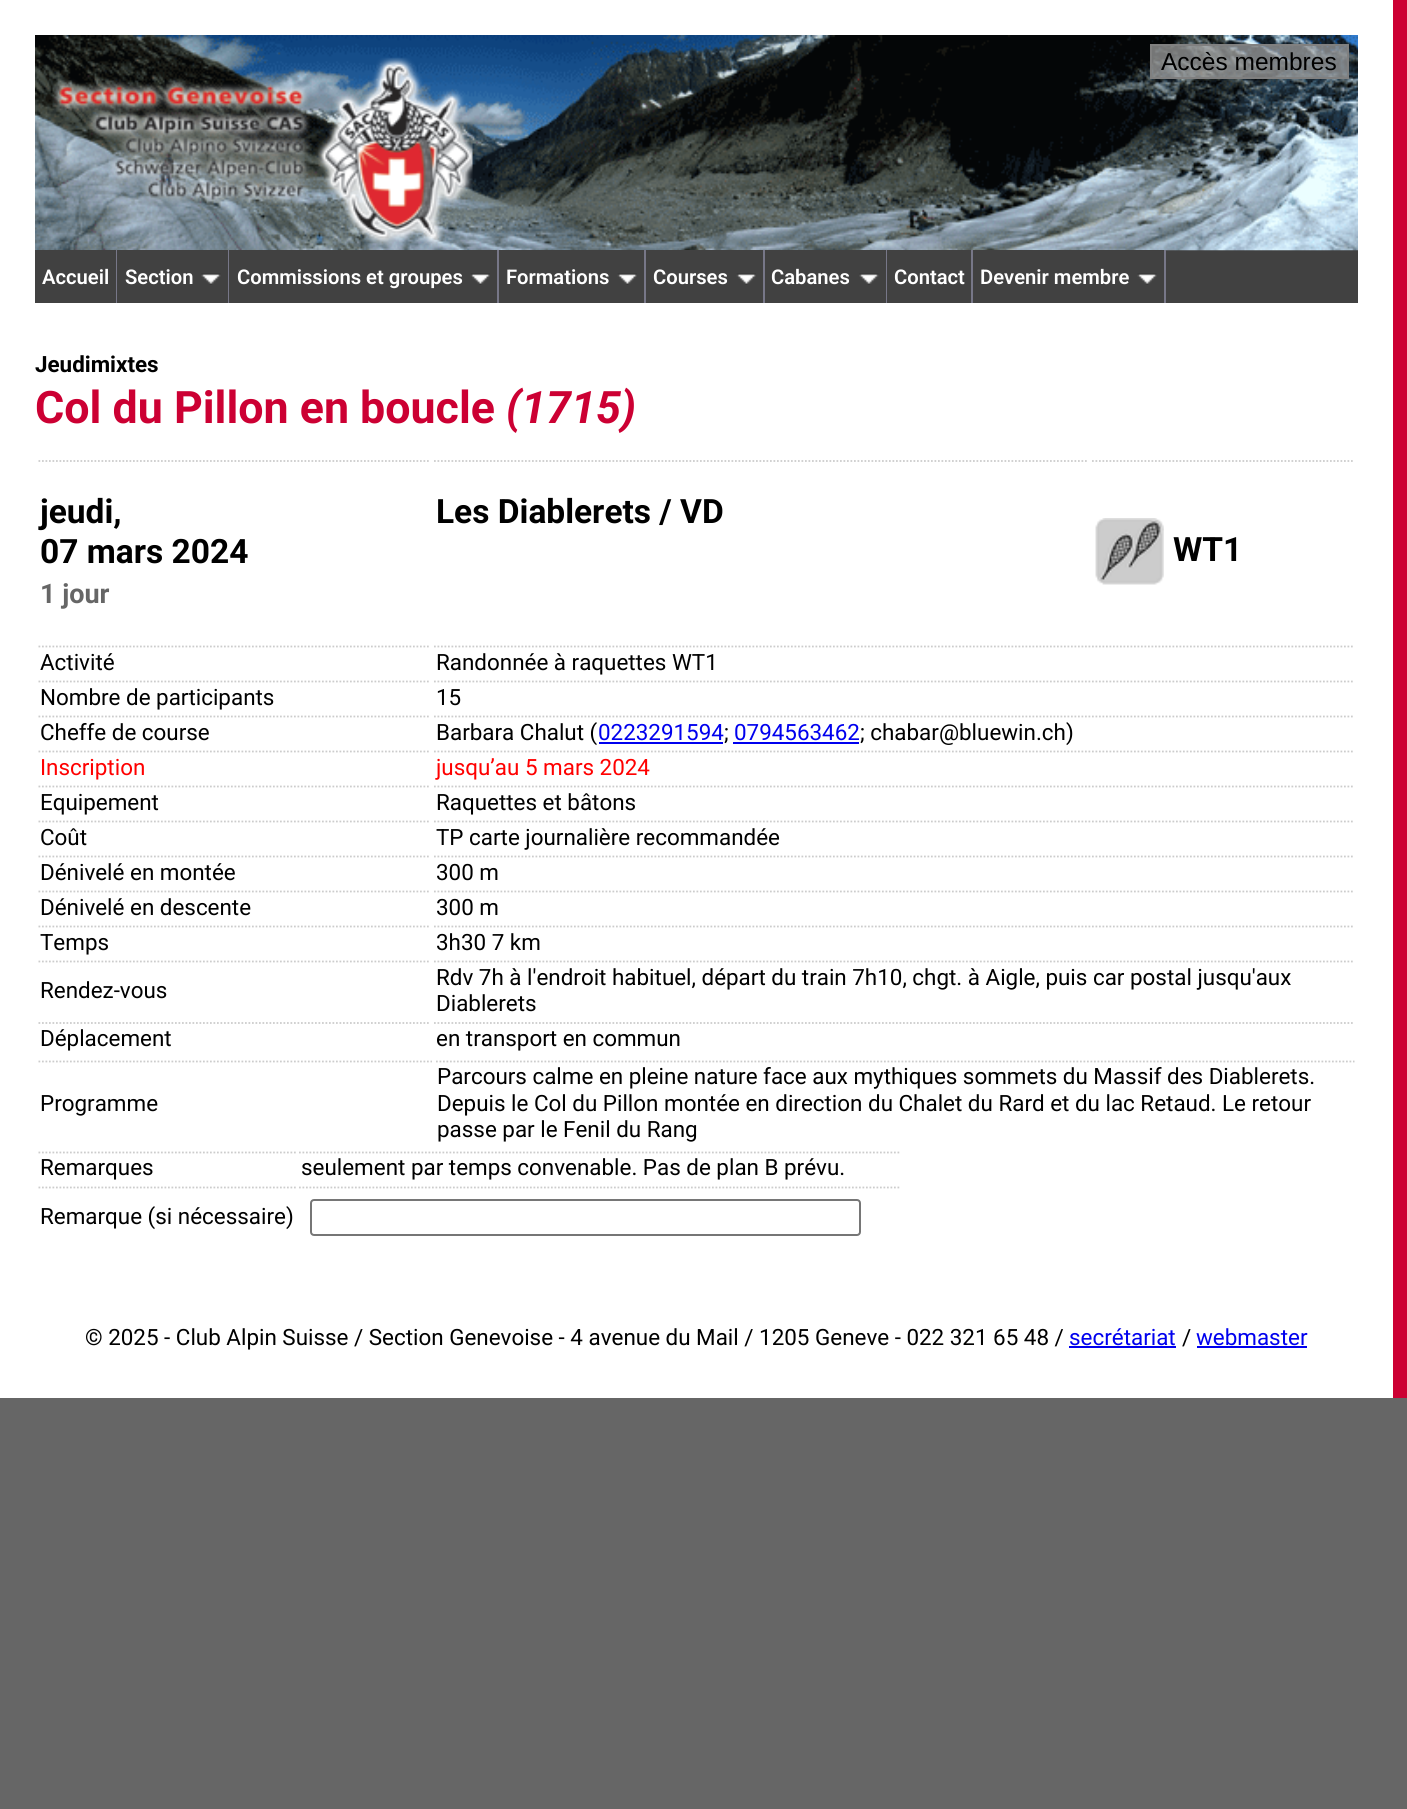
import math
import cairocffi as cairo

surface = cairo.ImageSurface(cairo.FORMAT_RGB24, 1407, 1809)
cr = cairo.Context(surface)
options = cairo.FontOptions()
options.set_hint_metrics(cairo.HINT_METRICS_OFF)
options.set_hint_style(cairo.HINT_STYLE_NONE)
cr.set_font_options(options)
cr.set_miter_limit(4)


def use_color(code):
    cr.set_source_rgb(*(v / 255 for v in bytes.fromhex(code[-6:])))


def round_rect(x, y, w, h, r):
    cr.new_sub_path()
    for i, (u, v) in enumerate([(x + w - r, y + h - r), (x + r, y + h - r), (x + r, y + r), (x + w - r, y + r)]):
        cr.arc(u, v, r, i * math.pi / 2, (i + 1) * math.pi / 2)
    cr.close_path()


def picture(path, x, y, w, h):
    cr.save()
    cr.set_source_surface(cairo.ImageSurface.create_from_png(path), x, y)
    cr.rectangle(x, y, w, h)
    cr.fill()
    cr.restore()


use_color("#666666")
cr.paint()
use_color("#ffffff")
cr.rectangle(0, 0, 1393, 1398)
cr.fill()
use_color("#cc0033")
cr.rectangle(1393, 0, 14, 1398)
cr.fill()
use_color("#414141")
cr.rectangle(1166, 250, 192, 53)
cr.fill()
picture("img1.png", 35, 35, 1323, 216)
picture("img2.png", 52, 57, 421, 190)
cr.set_source_rgba(0.651, 0.651, 0.651, 0.7)
cr.rectangle(1151, 45, 197, 33)
cr.fill_preserve()
use_color("#808080")
cr.stroke()
cr.select_font_face("Liberation Sans")
cr.set_font_size(24.5)
use_color("#000000")
cr.move_to(1161, 70)
cr.show_text("Accès membres")
use_color("#414141")
cr.rectangle(35, 250, 81, 53)
cr.fill()
use_color("#777788")
cr.rectangle(116, 250, 1, 53)
cr.fill()
cr.select_font_face("Roboto SemiBold")
cr.set_font_size(20.2)
use_color("#ffffff")
cr.move_to(42, 284)
cr.show_text("Accueil")
use_color("#414141")
cr.rectangle(117, 250, 111, 53)
cr.fill()
use_color("#777788")
cr.rectangle(228, 250, 1, 53)
cr.fill()
use_color("#ffffff")
cr.move_to(125, 284)
cr.show_text("Section")
picture("img3.png", 201, 273, 20, 12)
use_color("#414141")
cr.rectangle(229, 250, 268, 53)
cr.fill()
use_color("#777788")
cr.rectangle(497, 250, 2, 53)
cr.fill()
use_color("#ffffff")
cr.move_to(237, 284)
cr.show_text("Commissions et groupes")
picture("img4.png", 470, 273, 20, 12)
use_color("#414141")
cr.rectangle(499, 250, 145, 53)
cr.fill()
use_color("#777788")
cr.rectangle(644, 250, 2, 53)
cr.fill()
use_color("#ffffff")
cr.move_to(506, 284)
cr.show_text("Formations")
picture("img4.png", 617, 273, 20, 12)
use_color("#414141")
cr.rectangle(646, 250, 117, 53)
cr.fill()
use_color("#777788")
cr.rectangle(763, 250, 2, 53)
cr.fill()
use_color("#ffffff")
cr.move_to(653, 284)
cr.show_text("Courses")
picture("img4.png", 736, 273, 20, 12)
use_color("#414141")
cr.rectangle(765, 250, 121, 53)
cr.fill()
use_color("#777788")
cr.rectangle(886, 250, 1, 53)
cr.fill()
use_color("#ffffff")
cr.move_to(771, 284)
cr.show_text("Cabanes")
picture("img3.png", 859, 273, 20, 12)
use_color("#414141")
cr.rectangle(887, 250, 84, 53)
cr.fill()
use_color("#777788")
cr.rectangle(971, 250, 2, 53)
cr.fill()
use_color("#ffffff")
cr.move_to(894, 284)
cr.show_text("Contact")
use_color("#414141")
cr.rectangle(973, 250, 191, 53)
cr.fill()
use_color("#777788")
cr.rectangle(1164, 250, 2, 53)
cr.fill()
use_color("#ffffff")
cr.move_to(980, 284)
cr.show_text("Devenir membre")
picture("img5.png", 1137, 273, 20, 12)
cr.select_font_face("Roboto", cairo.FONT_SLANT_NORMAL, cairo.FONT_WEIGHT_BOLD)
cr.set_font_size(22.4)
use_color("#000000")
cr.move_to(35, 372)
cr.show_text("Jeudimixtes")
cr.set_font_size(44.75)
use_color("#cc0033")
cr.move_to(35, 423)
cr.show_text("Col du Pillon en boucle")
cr.select_font_face("Roboto", cairo.FONT_SLANT_ITALIC, cairo.FONT_WEIGHT_BOLD)
cr.move_to(506, 423)
cr.show_text("(1715)")
cr.new_path()
cr.move_to(38.5, 461)
cr.line_to(430.5, 461)
use_color("#cccccc")
cr.set_line_width(1.8)
cr.set_dash([1.75, 1.75])
cr.stroke()
cr.select_font_face("Roboto", cairo.FONT_SLANT_NORMAL, cairo.FONT_WEIGHT_BOLD)
cr.set_font_size(33.5)
use_color("#000000")
cr.move_to(40, 523)
cr.show_text("jeudi,")
cr.move_to(40, 563)
cr.show_text("07 mars 2024")
cr.set_font_size(27)
use_color("#666666")
cr.move_to(40, 603)
cr.show_text("1 jour")
cr.new_path()
cr.move_to(434, 461)
cr.line_to(1088.5, 461)
use_color("#cccccc")
cr.stroke()
cr.set_font_size(33.5)
use_color("#000000")
cr.move_to(436, 523)
cr.show_text("Les Diablerets / VD")
cr.new_path()
cr.move_to(1092, 461)
cr.line_to(1354.5, 461)
use_color("#cccccc")
cr.stroke()
picture("img6.png", 1095, 518, 69, 67)
use_color("#000000")
cr.move_to(1173, 561)
cr.show_text("WT1")
cr.new_path()
cr.move_to(38.5, 646.5)
cr.line_to(430.5, 646.5)
use_color("#cccccc")
cr.stroke()
cr.select_font_face("Roboto")
cr.set_font_size(22.4)
use_color("#000000")
cr.move_to(40, 670)
cr.show_text("Activité")
cr.new_path()
cr.move_to(434, 646.5)
cr.line_to(1354.5, 646.5)
use_color("#cccccc")
cr.stroke()
use_color("#000000")
cr.move_to(436, 670)
cr.show_text("Randonnée à raquettes WT1")
cr.new_path()
cr.move_to(38.5, 681.5)
cr.line_to(430.5, 681.5)
use_color("#cccccc")
cr.stroke()
use_color("#000000")
cr.move_to(40, 705)
cr.show_text("Nombre de participants")
cr.new_path()
cr.move_to(434, 681.5)
cr.line_to(1354.5, 681.5)
use_color("#cccccc")
cr.stroke()
use_color("#000000")
cr.move_to(436, 705)
cr.show_text("15")
cr.new_path()
cr.move_to(38.5, 716.5)
cr.line_to(430.5, 716.5)
use_color("#cccccc")
cr.stroke()
use_color("#000000")
cr.move_to(40, 740)
cr.show_text("Cheffe de course")
cr.new_path()
cr.move_to(434, 716.5)
cr.line_to(1354.5, 716.5)
use_color("#cccccc")
cr.stroke()
use_color("#000000")
cr.move_to(436, 740)
cr.show_text("Barbara Chalut (")
use_color("#0000ee")
cr.move_to(598, 740)
cr.show_text("0223291594")
use_color("#000000")
cr.move_to(724, 740)
cr.show_text(";")
use_color("#0000ee")
cr.rectangle(599, 742, 124, 2)
cr.fill()
cr.rectangle(733, 742, 126, 2)
cr.fill()
cr.move_to(734, 740)
cr.show_text("0794563462")
use_color("#000000")
cr.move_to(860, 740)
cr.show_text("; chabar@bluewin.ch)")
cr.new_path()
cr.move_to(38.5, 751.5)
cr.line_to(430.5, 751.5)
use_color("#cccccc")
cr.stroke()
use_color("#ff0000")
cr.move_to(40, 775)
cr.show_text("Inscription")
cr.new_path()
cr.move_to(434, 751.5)
cr.line_to(1354.5, 751.5)
use_color("#cccccc")
cr.stroke()
use_color("#ff0000")
cr.move_to(436, 775)
cr.show_text("jusquʼau 5 mars 2024")
cr.new_path()
cr.move_to(38.5, 786.5)
cr.line_to(430.5, 786.5)
use_color("#cccccc")
cr.stroke()
use_color("#000000")
cr.move_to(40, 810)
cr.show_text("Equipement")
cr.new_path()
cr.move_to(434, 786.5)
cr.line_to(1354.5, 786.5)
use_color("#cccccc")
cr.stroke()
use_color("#000000")
cr.move_to(436, 810)
cr.show_text("Raquettes et bâtons")
cr.new_path()
cr.move_to(38.5, 821.5)
cr.line_to(430.5, 821.5)
use_color("#cccccc")
cr.stroke()
use_color("#000000")
cr.move_to(40, 845)
cr.show_text("Coût")
cr.new_path()
cr.move_to(434, 821.5)
cr.line_to(1354.5, 821.5)
use_color("#cccccc")
cr.stroke()
use_color("#000000")
cr.move_to(436, 845)
cr.show_text("TP carte journalière recommandée")
cr.new_path()
cr.move_to(38.5, 856.5)
cr.line_to(430.5, 856.5)
use_color("#cccccc")
cr.stroke()
use_color("#000000")
cr.move_to(40, 880)
cr.show_text("Dénivelé en montée")
cr.new_path()
cr.move_to(434, 856.5)
cr.line_to(1354.5, 856.5)
use_color("#cccccc")
cr.stroke()
use_color("#000000")
cr.move_to(436, 880)
cr.show_text("300 m")
cr.new_path()
cr.move_to(38.5, 891.5)
cr.line_to(430.5, 891.5)
use_color("#cccccc")
cr.stroke()
use_color("#000000")
cr.move_to(40, 915)
cr.show_text("Dénivelé en descente")
cr.new_path()
cr.move_to(434, 891.5)
cr.line_to(1354.5, 891.5)
use_color("#cccccc")
cr.stroke()
use_color("#000000")
cr.move_to(436, 915)
cr.show_text("300 m")
cr.new_path()
cr.move_to(38.5, 926.5)
cr.line_to(430.5, 926.5)
use_color("#cccccc")
cr.stroke()
use_color("#000000")
cr.move_to(40, 950)
cr.show_text("Temps")
cr.new_path()
cr.move_to(434, 926.5)
cr.line_to(1354.5, 926.5)
use_color("#cccccc")
cr.stroke()
use_color("#000000")
cr.move_to(436, 950)
cr.show_text("3h30 7 km")
cr.new_path()
cr.move_to(38.5, 961.5)
cr.line_to(430.5, 961.5)
use_color("#cccccc")
cr.stroke()
use_color("#000000")
cr.move_to(40, 998)
cr.show_text("Rendez-vous")
cr.new_path()
cr.move_to(434, 961.5)
cr.line_to(1354.5, 961.5)
use_color("#cccccc")
cr.stroke()
use_color("#000000")
cr.move_to(436, 985)
cr.show_text("Rdv 7h à l'endroit habituel, départ du train 7h10, chgt. à Aigle, puis car postal jusqu'aux")
cr.move_to(436, 1011)
cr.show_text("Diablerets")
cr.new_path()
cr.move_to(38.5, 1023)
cr.line_to(430.5, 1023)
use_color("#cccccc")
cr.stroke()
use_color("#000000")
cr.move_to(40, 1046)
cr.show_text("Déplacement")
cr.new_path()
cr.move_to(434, 1023)
cr.line_to(1354.5, 1023)
use_color("#cccccc")
cr.stroke()
use_color("#000000")
cr.move_to(436, 1046)
cr.show_text("en transport en commun")
cr.new_path()
cr.move_to(38.5, 1061.5)
cr.line_to(432, 1061.5)
use_color("#cccccc")
cr.stroke()
use_color("#000000")
cr.move_to(40, 1111)
cr.show_text("Programme")
cr.new_path()
cr.move_to(436, 1061.5)
cr.line_to(1354.5, 1061.5)
use_color("#cccccc")
cr.stroke()
use_color("#000000")
cr.move_to(437, 1084)
cr.show_text("Parcours calme en pleine nature face aux mythiques sommets du Massif des Diablerets.")
cr.move_to(437, 1111)
cr.show_text("Depuis le Col du Pillon montée en direction du Chalet du Rard et du lac Retaud. Le retour")
cr.move_to(437, 1137)
cr.show_text("passe par le Fenil du Rang")
cr.new_path()
cr.move_to(38.5, 1152.5)
cr.line_to(296, 1152.5)
use_color("#cccccc")
cr.stroke()
use_color("#000000")
cr.move_to(40, 1175)
cr.show_text("Remarques")
cr.new_path()
cr.move_to(299, 1152.5)
cr.line_to(899.5, 1152.5)
use_color("#cccccc")
cr.stroke()
use_color("#000000")
cr.move_to(301, 1175)
cr.show_text("seulement par temps convenable. Pas de plan B prévu.")
cr.new_path()
cr.move_to(38.5, 1187.5)
cr.line_to(296, 1187.5)
use_color("#cccccc")
cr.stroke()
use_color("#000000")
cr.move_to(40, 1224)
cr.show_text("Remarque (si nécessaire)")
cr.new_path()
cr.move_to(299, 1187.5)
cr.line_to(899.5, 1187.5)
use_color("#cccccc")
cr.stroke()
round_rect(311, 1200, 549, 35, 3)
use_color("#767676")
cr.set_line_width(2)
cr.set_dash([])
cr.stroke()
use_color("#000000")
cr.move_to(85, 1345)
cr.show_text("© 2025 - Club Alpin Suisse / Section Genevoise - 4 avenue du Mail / 1205 Geneve - 022 321 65 48 /")
use_color("#0000ee")
cr.move_to(1069, 1345)
cr.show_text("secrétariat")
cr.rectangle(1069, 1346, 107, 2)
cr.fill()
use_color("#000000")
cr.move_to(1182, 1345)
cr.show_text("/")
use_color("#0000ee")
cr.move_to(1196, 1345)
cr.show_text("webmaster")
cr.rectangle(1197, 1346, 110, 2)
cr.fill()
surface.write_to_png("result.png")
